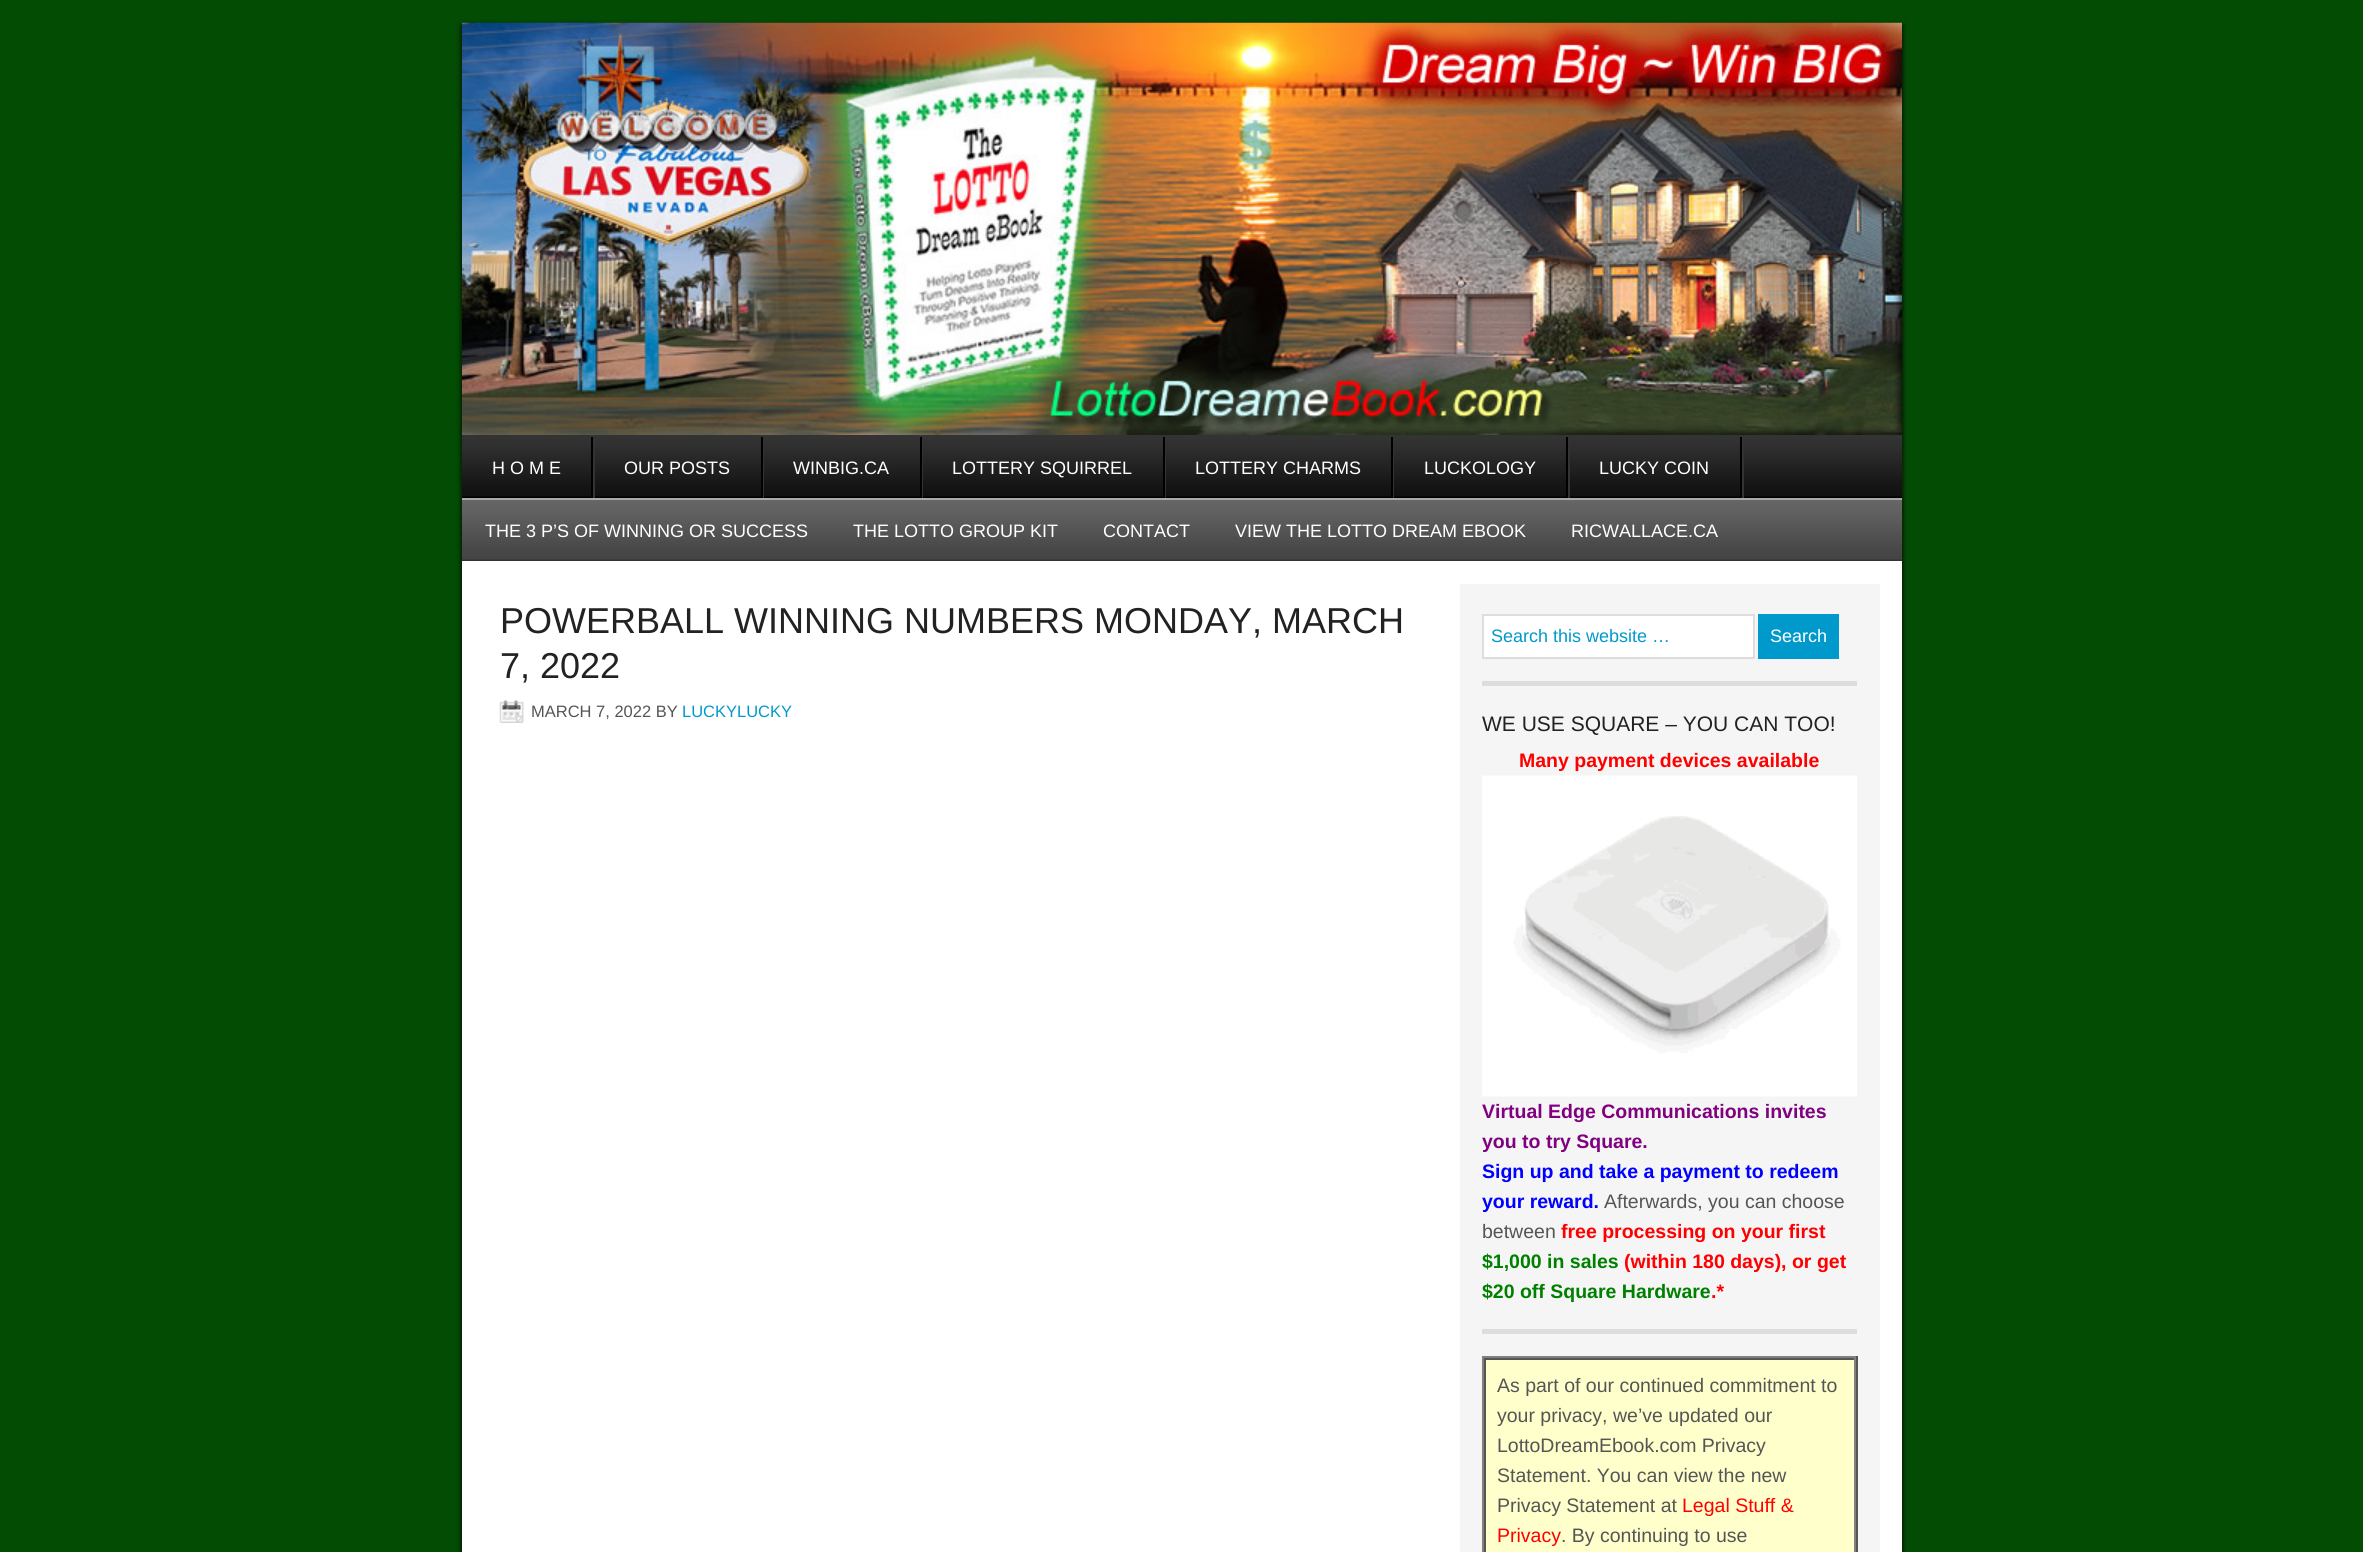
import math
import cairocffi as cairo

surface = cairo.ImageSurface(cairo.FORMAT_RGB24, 2363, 1552)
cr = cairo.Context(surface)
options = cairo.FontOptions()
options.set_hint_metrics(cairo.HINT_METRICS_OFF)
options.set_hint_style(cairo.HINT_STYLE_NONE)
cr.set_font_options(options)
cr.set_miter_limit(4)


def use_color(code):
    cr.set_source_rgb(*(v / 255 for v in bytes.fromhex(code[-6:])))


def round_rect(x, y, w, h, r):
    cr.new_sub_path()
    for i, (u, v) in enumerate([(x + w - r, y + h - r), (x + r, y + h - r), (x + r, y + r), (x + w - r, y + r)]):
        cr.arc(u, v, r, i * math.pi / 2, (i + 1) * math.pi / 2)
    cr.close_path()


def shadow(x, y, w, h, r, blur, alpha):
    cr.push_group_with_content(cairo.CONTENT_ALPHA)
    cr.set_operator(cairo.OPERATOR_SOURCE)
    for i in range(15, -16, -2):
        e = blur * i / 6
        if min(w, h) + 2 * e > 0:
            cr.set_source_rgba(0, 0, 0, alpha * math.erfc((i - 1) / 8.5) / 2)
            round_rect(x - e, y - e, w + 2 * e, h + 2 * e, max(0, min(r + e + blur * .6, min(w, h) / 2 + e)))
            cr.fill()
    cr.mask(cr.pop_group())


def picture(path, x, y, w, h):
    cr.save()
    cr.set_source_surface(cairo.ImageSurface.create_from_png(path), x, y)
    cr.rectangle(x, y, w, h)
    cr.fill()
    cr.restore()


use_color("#034c04")
cr.paint()
use_color("#000000")
shadow(462, 26, 1440, 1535, 0, 3, 1)
use_color("#ffffff")
cr.rectangle(462, 561, 1440, 991)
cr.fill()
picture("img1.png", 462, 22, 1440, 413)
picture("img2.png", 462, 437, 1440, 61)
use_color("#333333")
cr.rectangle(462, 435, 1440, 2)
cr.fill()
cr.rectangle(593, 437, 2, 61)
cr.fill()
use_color("#000000")
cr.rectangle(591, 437, 2, 61)
cr.fill()
cr.select_font_face("Liberation Sans")
cr.set_font_size(18)
use_color("#ffffff")
cr.move_to(492, 474)
cr.show_text("H O M E")
use_color("#333333")
cr.rectangle(763, 437, 1, 61)
cr.fill()
use_color("#000000")
cr.rectangle(761, 437, 2, 61)
cr.fill()
use_color("#ffffff")
cr.move_to(624, 474)
cr.show_text("OUR POSTS")
use_color("#333333")
cr.rectangle(922, 437, 1, 61)
cr.fill()
use_color("#000000")
cr.rectangle(920, 437, 2, 61)
cr.fill()
use_color("#ffffff")
cr.move_to(793, 474)
cr.show_text("WINBIG.CA")
use_color("#333333")
cr.rectangle(1165, 437, 1, 61)
cr.fill()
use_color("#000000")
cr.rectangle(1163, 437, 2, 61)
cr.fill()
use_color("#ffffff")
cr.move_to(952, 474)
cr.show_text("LOTTERY SQUIRREL")
use_color("#333333")
cr.rectangle(1393, 437, 1, 61)
cr.fill()
use_color("#000000")
cr.rectangle(1391, 437, 2, 61)
cr.fill()
use_color("#ffffff")
cr.move_to(1195, 474)
cr.show_text("LOTTERY CHARMS")
use_color("#333333")
cr.rectangle(1568, 437, 2, 61)
cr.fill()
use_color("#000000")
cr.rectangle(1566, 437, 2, 61)
cr.fill()
use_color("#ffffff")
cr.move_to(1424, 474)
cr.show_text("LUCKOLOGY")
use_color("#333333")
cr.rectangle(1742, 437, 2, 61)
cr.fill()
use_color("#000000")
cr.rectangle(1740, 437, 2, 61)
cr.fill()
use_color("#ffffff")
cr.move_to(1599, 474)
cr.show_text("LUCKY COIN")
picture("img3.png", 462, 500, 1440, 61)
use_color("#aaaaaa")
cr.rectangle(462, 498, 1440, 2)
cr.fill()
use_color("#ffffff")
cr.move_to(485, 537)
cr.show_text("THE 3 P’S OF WINNING OR SUCCESS")
cr.move_to(853, 537)
cr.show_text("THE LOTTO GROUP KIT")
cr.move_to(1103, 537)
cr.show_text("CONTACT")
cr.move_to(1235, 537)
cr.show_text("VIEW THE LOTTO DREAM EBOOK")
cr.move_to(1571, 537)
cr.show_text("RICWALLACE.CA")
cr.set_font_size(36)
use_color("#222222")
cr.move_to(500, 633)
cr.show_text("POWERBALL WINNING NUMBERS MONDAY, MARCH")
cr.move_to(500, 678)
cr.show_text("7, 2022")
picture("img4.png", 499, 700, 25, 23)
cr.set_font_size(16.5)
use_color("#555555")
cr.move_to(531, 717)
cr.show_text("MARCH 7, 2022 BY")
use_color("#0099cc")
cr.move_to(682, 717)
cr.show_text("LUCKYLUCKY")
use_color("#f5f5f5")
cr.rectangle(1460, 584, 420, 968)
cr.fill()
use_color("#dddddd")
cr.rectangle(1482, 681, 375, 5)
cr.fill()
use_color("#ffffff")
cr.rectangle(1483, 615, 271, 43)
cr.fill_preserve()
use_color("#dddddd")
cr.stroke()
cr.set_font_size(18)
use_color("#0099cc")
cr.move_to(1491, 642)
cr.show_text("Search this website …")
cr.rectangle(1758, 614, 81, 45)
cr.fill()
use_color("#ffffff")
cr.move_to(1770, 642)
cr.show_text("Search")
use_color("#dddddd")
cr.rectangle(1482, 1329, 375, 5)
cr.fill()
cr.set_font_size(21)
use_color("#222222")
cr.move_to(1482, 731)
cr.show_text("WE USE SQUARE – YOU CAN TOO!")
cr.select_font_face("Liberation Sans", cairo.FONT_SLANT_NORMAL, cairo.FONT_WEIGHT_BOLD)
cr.set_font_size(19.5)
use_color("#ff0000")
cr.move_to(1519, 767)
cr.show_text("Many payment devices available")
picture("img5.png", 1482, 775, 375, 322)
use_color("#800080")
cr.move_to(1482, 1118)
cr.show_text("Virtual Edge Communications invites")
cr.move_to(1482, 1148)
cr.show_text("you to try Square.")
use_color("#0000ff")
cr.move_to(1482, 1178)
cr.show_text("Sign up and take a payment to redeem")
cr.move_to(1482, 1208)
cr.show_text("your reward.")
cr.select_font_face("Liberation Sans")
use_color("#555555")
cr.move_to(1604, 1208)
cr.show_text("Afterwards, you can choose")
cr.move_to(1482, 1238)
cr.show_text("between")
cr.select_font_face("Liberation Sans", cairo.FONT_SLANT_NORMAL, cairo.FONT_WEIGHT_BOLD)
use_color("#ff0000")
cr.move_to(1561, 1238)
cr.show_text("free processing on your first")
use_color("#008000")
cr.move_to(1482, 1268)
cr.show_text("$1,000 in sales")
use_color("#ff0000")
cr.move_to(1624, 1268)
cr.show_text("(within 180 days), or get")
use_color("#008000")
cr.move_to(1482, 1298)
cr.show_text("$20 off Square Hardware")
use_color("#ff0000")
cr.move_to(1711, 1298)
cr.show_text(".*")
use_color("#808080")
cr.rectangle(1482, 1356, 375, 2)
cr.fill()
use_color("#555555")
cr.rectangle(1856, 1356, 2, 196)
cr.fill()
use_color("#808080")
cr.rectangle(1482, 1356, 2, 196)
cr.fill()
use_color("#ffffcc")
cr.rectangle(1486, 1360, 368, 192)
cr.fill()
use_color("#555555")
cr.rectangle(1484, 1358, 372, 2)
cr.fill()
use_color("#808080")
cr.rectangle(1854, 1358, 2, 194)
cr.fill()
use_color("#555555")
cr.rectangle(1484, 1358, 2, 194)
cr.fill()
cr.select_font_face("Liberation Sans")
cr.move_to(1497, 1392)
cr.show_text("As part of our continued commitment to")
cr.move_to(1497, 1422)
cr.show_text("your privacy, we’ve updated our")
cr.move_to(1497, 1452)
cr.show_text("LottoDreamEbook.com Privacy")
cr.move_to(1497, 1482)
cr.show_text("Statement. You can view the new")
cr.move_to(1497, 1512)
cr.show_text("Privacy Statement at")
use_color("#ff0000")
cr.move_to(1682, 1512)
cr.show_text("Legal Stuff &")
cr.move_to(1497, 1542)
cr.show_text("Privacy")
use_color("#555555")
cr.move_to(1561, 1542)
cr.show_text(". By continuing to use")
surface.write_to_png("result.png")
